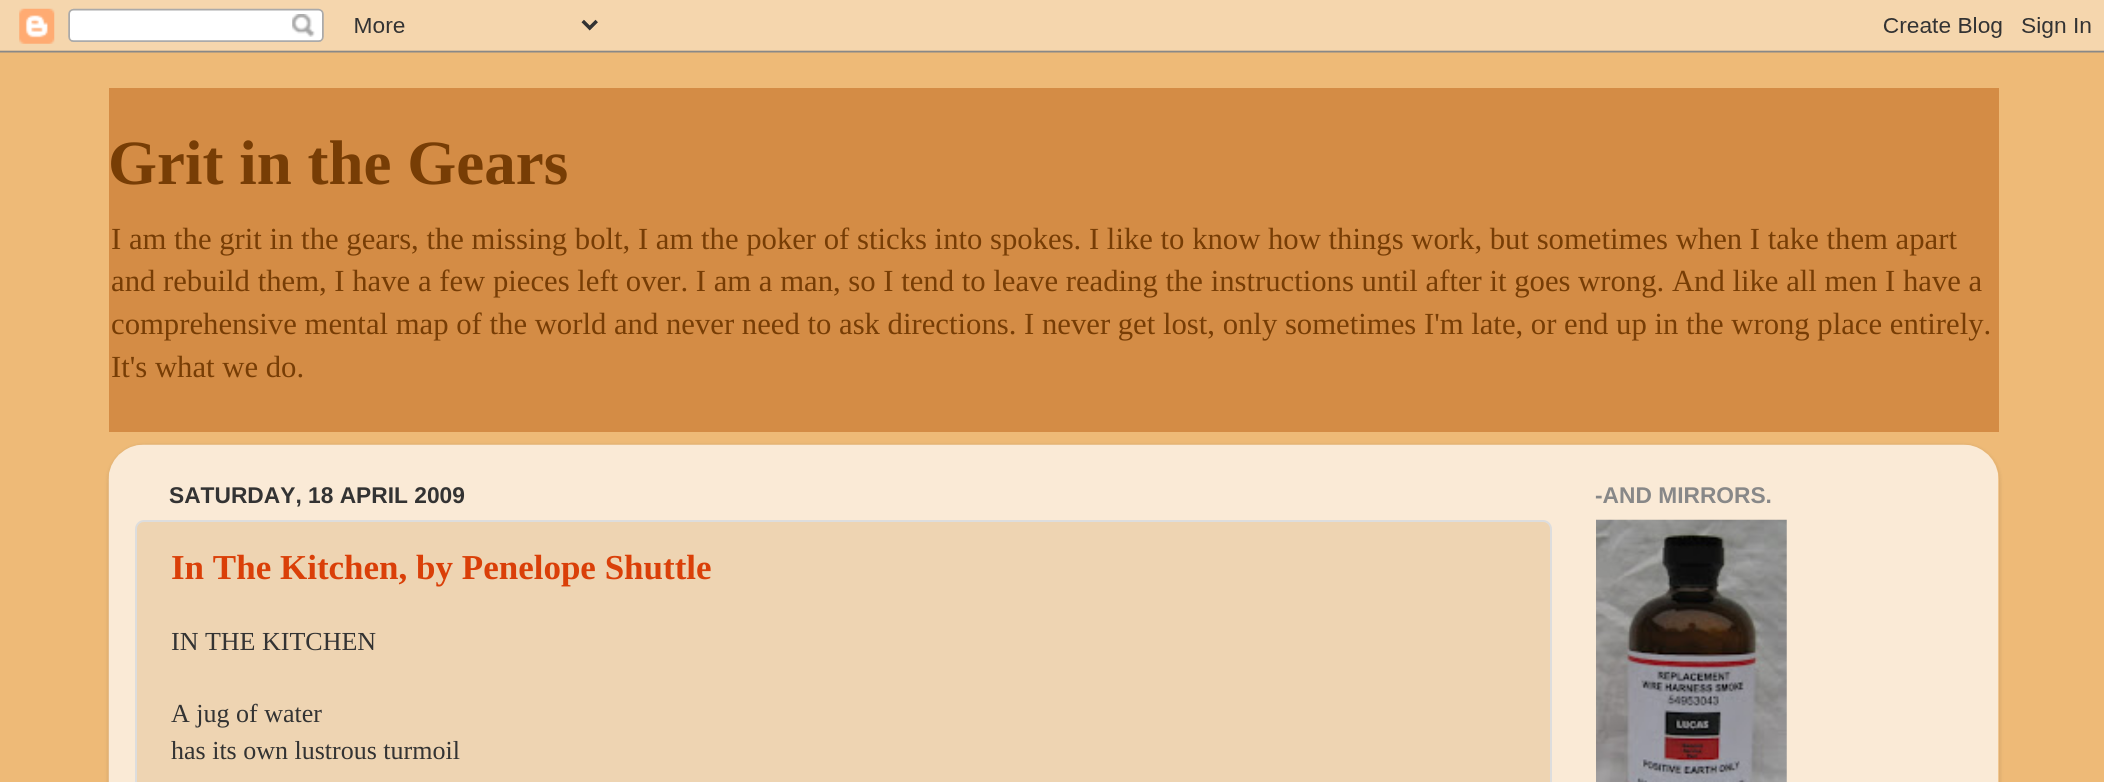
import math
import cairocffi as cairo

surface = cairo.ImageSurface(cairo.FORMAT_RGB24, 2104, 782)
cr = cairo.Context(surface)
options = cairo.FontOptions()
options.set_hint_metrics(cairo.HINT_METRICS_OFF)
options.set_hint_style(cairo.HINT_STYLE_NONE)
cr.set_font_options(options)
cr.set_miter_limit(4)


def use_color(code):
    cr.set_source_rgb(*(v / 255 for v in bytes.fromhex(code[-6:])))


def round_rect(x, y, w, h, r):
    cr.new_sub_path()
    for i, (u, v) in enumerate([(x + w - r, y + h - r), (x + r, y + h - r), (x + r, y + r), (x + w - r, y + r)]):
        cr.arc(u, v, r, i * math.pi / 2, (i + 1) * math.pi / 2)
    cr.close_path()


def shadow(x, y, w, h, r, blur, alpha):
    cr.push_group_with_content(cairo.CONTENT_ALPHA)
    cr.set_operator(cairo.OPERATOR_SOURCE)
    for i in range(15, -16, -2):
        e = blur * i / 6
        if min(w, h) + 2 * e > 0:
            cr.set_source_rgba(0, 0, 0, alpha * math.erfc((i - 1) / 8.5) / 2)
            round_rect(x - e, y - e, w + 2 * e, h + 2 * e, max(0, min(r + e + blur * .6, min(w, h) / 2 + e)))
            cr.fill()
    cr.mask(cr.pop_group())


def picture(path, x, y, w, h):
    cr.save()
    cr.set_source_surface(cairo.ImageSurface.create_from_png(path), x, y)
    cr.rectangle(x, y, w, h)
    cr.fill()
    cr.restore()


use_color("#eeba77")
cr.paint()
picture("img1.png", 0, 0, 2104, 53)
use_color("#d48c45")
cr.rectangle(109, 88, 1890, 344)
cr.fill()
cr.select_font_face("Liberation Serif", cairo.FONT_SLANT_NORMAL, cairo.FONT_WEIGHT_BOLD)
cr.set_font_size(63)
use_color("#773d05")
cr.move_to(108, 184)
cr.show_text("Grit in the Gears")
cr.select_font_face("Liberation Serif")
cr.set_font_size(30.7)
cr.move_to(111, 249)
cr.show_text("I am the grit in the gears, the missing bolt, I am the poker of sticks into spokes. I like to know how things work, but sometimes when I take them apart")
cr.move_to(111, 291)
cr.show_text("and rebuild them, I have a few pieces left over. I am a man, so I tend to leave reading the instructions until after it goes wrong. And like all men I have a")
cr.move_to(111, 334)
cr.show_text("comprehensive mental map of the world and never need to ask directions. I never get lost, only sometimes I'm late, or end up in the wrong place entirely.")
cr.move_to(111, 377)
cr.show_text("It's what we do.")
cr.save()
cr.set_fill_rule(cairo.FILL_RULE_EVEN_ODD)
cr.new_path()
cr.move_to(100, 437)
cr.line_to(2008, 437)
cr.line_to(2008, 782)
cr.line_to(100, 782)
cr.close_path()
cr.move_to(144, 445)
cr.line_to(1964, 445)
cr.curve_to(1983.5, 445, 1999, 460.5, 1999, 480)
cr.line_to(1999, 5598)
cr.line_to(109, 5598)
cr.line_to(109, 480)
cr.curve_to(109, 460.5, 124.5, 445, 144, 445)
cr.close_path()
cr.clip()
use_color("#000000")
shadow(109, 446, 1890, 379, 35, 2.5, 0.15)
cr.restore()
picture("img2.png", 108, 444, 1891, 338)
cr.select_font_face("Liberation Sans", cairo.FONT_SLANT_NORMAL, cairo.FONT_WEIGHT_BOLD)
cr.set_font_size(22.75)
use_color("#333333")
cr.move_to(169, 503)
cr.show_text("SATURDAY, 18 APRIL 2009")
use_color("#eed4b2")
round_rect(136, 521, 1415, 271, 8)
cr.fill_preserve()
use_color("#dddddd")
cr.stroke()
cr.select_font_face("Liberation Serif", cairo.FONT_SLANT_NORMAL, cairo.FONT_WEIGHT_BOLD)
cr.set_font_size(35)
use_color("#da3f08")
cr.move_to(171, 579)
cr.show_text("In The Kitchen, by Penelope Shuttle")
cr.select_font_face("Liberation Serif")
cr.set_font_size(26)
use_color("#333333")
cr.move_to(171, 650)
cr.show_text("IN THE KITCHEN")
cr.move_to(171, 722)
cr.show_text("A jug of water")
cr.move_to(171, 759)
cr.show_text("has its own lustrous turmoil")
cr.select_font_face("Liberation Sans", cairo.FONT_SLANT_NORMAL, cairo.FONT_WEIGHT_BOLD)
cr.set_font_size(22.75)
use_color("#888888")
cr.move_to(1595, 503)
cr.show_text("-AND MIRRORS.")
picture("img3.png", 1596, 519, 191, 263)
surface.write_to_png("result.png")
